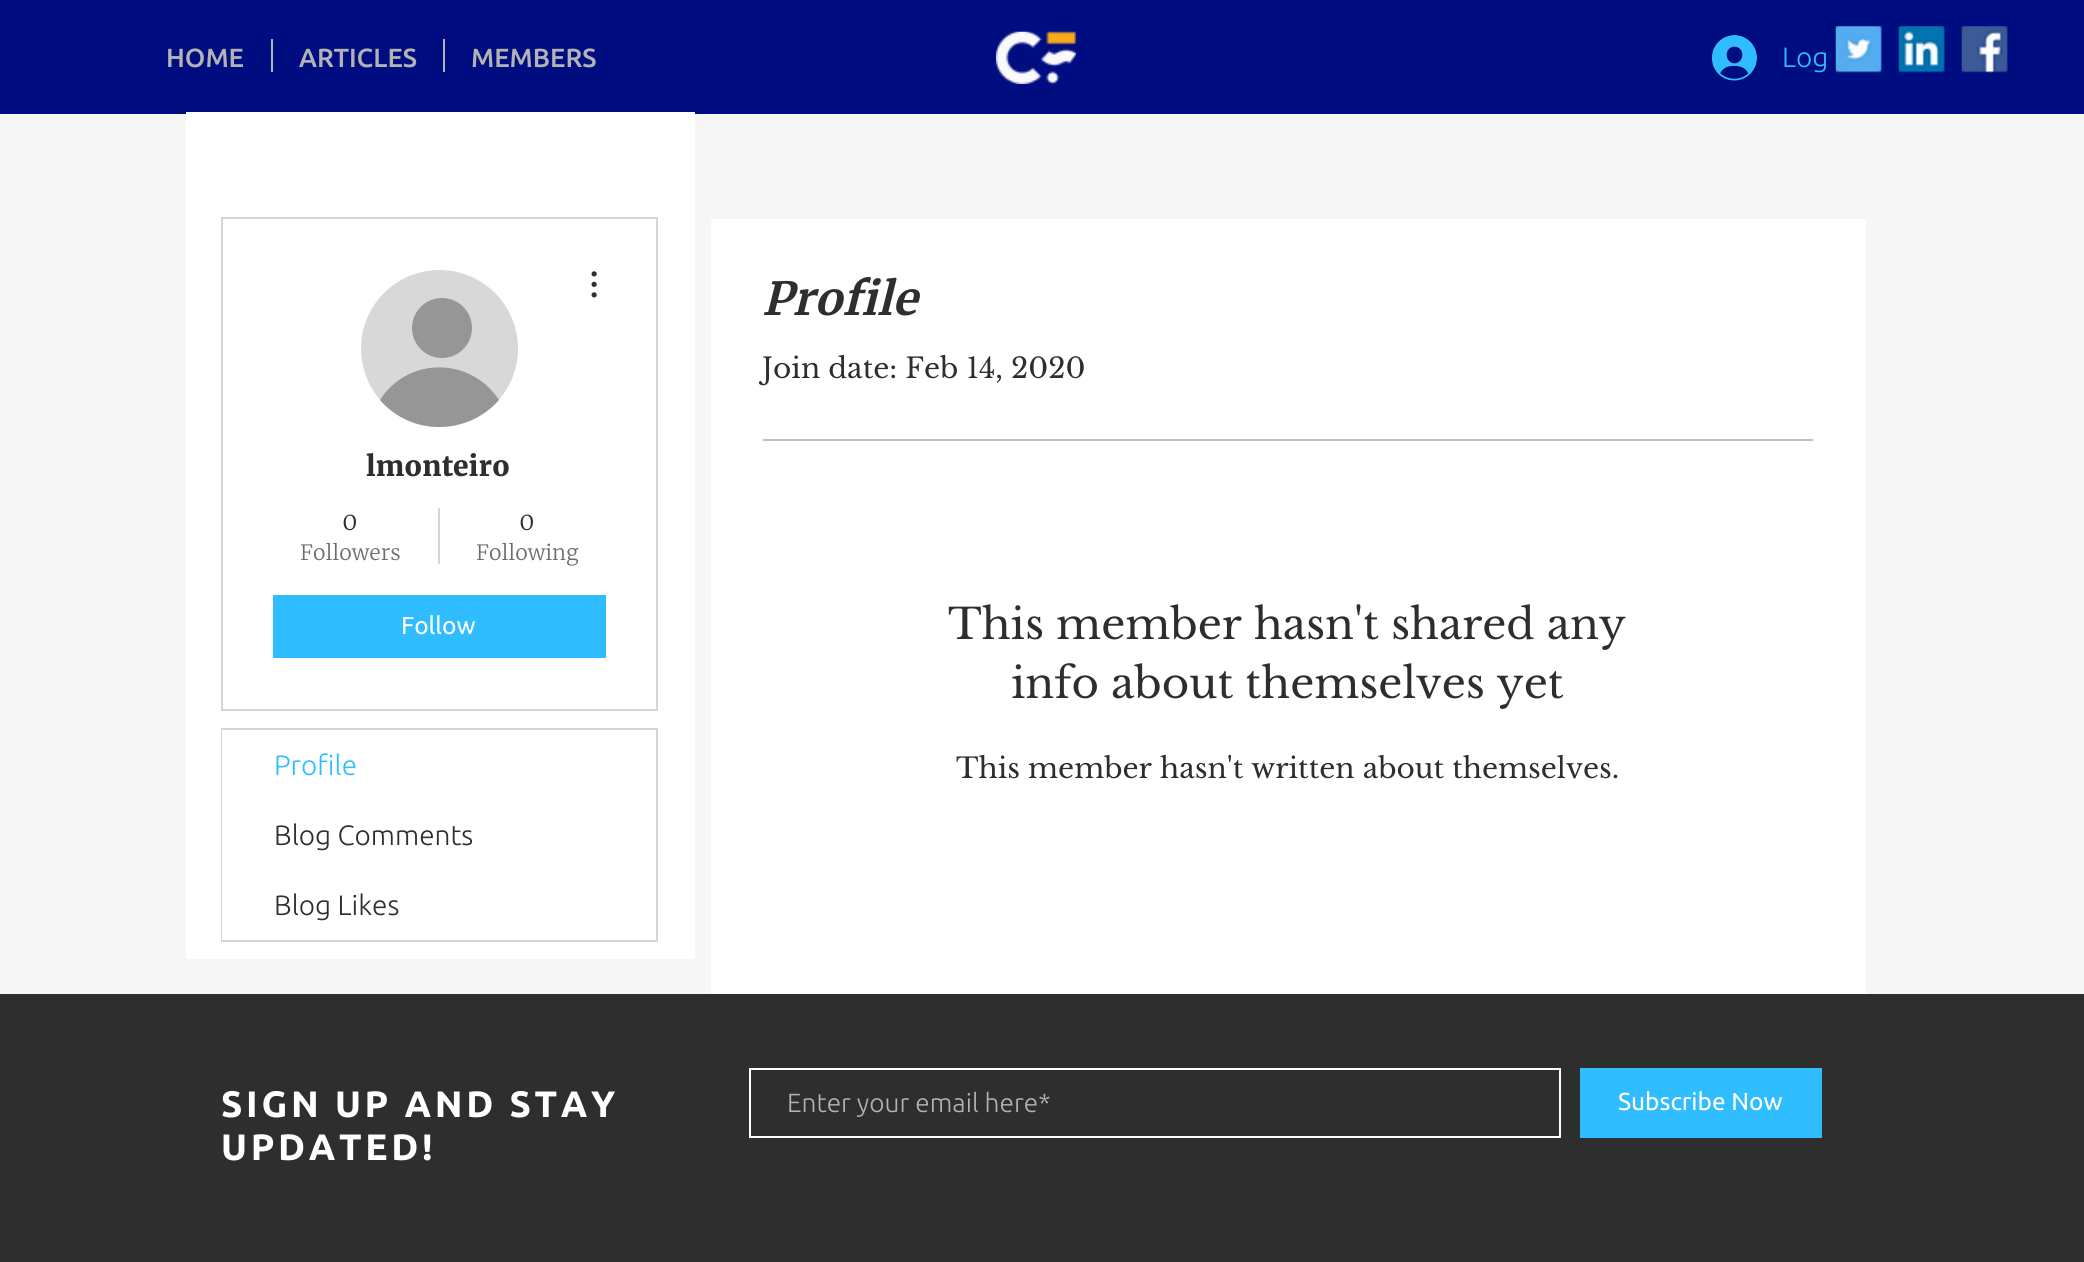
import math
import cairocffi as cairo

surface = cairo.ImageSurface(cairo.FORMAT_RGB24, 2084, 1262)
cr = cairo.Context(surface)
options = cairo.FontOptions()
options.set_hint_metrics(cairo.HINT_METRICS_OFF)
options.set_hint_style(cairo.HINT_STYLE_NONE)
cr.set_font_options(options)
cr.set_miter_limit(4)


def use_color(code):
    cr.set_source_rgb(*(v / 255 for v in bytes.fromhex(code[-6:])))


def spaced_text(x, y, s, letter, word):
    cr.move_to(x, y)
    for ch in s:
        cr.show_text(ch)
        cr.rel_move_to(letter + word * (ch == ' '), 0)


def picture(path, x, y, w, h):
    cr.save()
    cr.set_source_surface(cairo.ImageSurface.create_from_png(path), x, y)
    cr.rectangle(x, y, w, h)
    cr.fill()
    cr.restore()


use_color("#f6f6f6")
cr.paint()
use_color("#000d80")
cr.rectangle(0, 0, 2084, 114)
cr.fill()
cr.select_font_face("Ubuntu Medium")
cr.set_font_size(26.25)
use_color("#b3b3b3")
cr.move_to(166, 67)
cr.show_text("HOME")
cr.rectangle(271, 39, 2, 33)
cr.fill()
cr.move_to(299, 67)
cr.show_text("ARTICLES")
cr.rectangle(443, 39, 2, 33)
cr.fill()
cr.move_to(471, 67)
cr.show_text("MEMBERS")
picture("img1.png", 995, 31, 82, 53)
picture("img2.png", 1712, 35, 45, 46)
cr.select_font_face("Ubuntu Light")
cr.set_font_size(28)
use_color("#30bdff")
cr.move_to(1782, 67)
cr.show_text("Log")
picture("img3.png", 1835, 26, 47, 47)
picture("img4.png", 1898, 26, 47, 47)
picture("img5.png", 1961, 26, 47, 47)
use_color("#ffffff")
cr.rectangle(186, 112, 509, 847)
cr.fill()
cr.rectangle(222, 218, 435, 492)
use_color("#d5d5d5")
cr.stroke()
use_color("#d8d8d8")
cr.arc(439.5, 348.5, 78.5, 0, 2 * math.pi)
cr.fill()
use_color("#969696")
cr.arc(442, 328, 30, 0, 2 * math.pi)
cr.fill()
cr.new_path()
cr.move_to(499, 400)
cr.curve_to(467, 436, 411, 436, 380, 400)
cr.curve_to(408, 356, 471, 357, 499, 400)
cr.close_path()
cr.fill()
picture("img6.png", 591, 271, 6, 27)
cr.select_font_face("Merriweather Black")
use_color("#2f2e2e")
cr.move_to(366, 476)
cr.show_text("lmonteiro")
cr.select_font_face("Merriweather Light")
cr.set_font_size(24.5)
cr.move_to(342, 530)
cr.show_text("0")
cr.set_font_size(21)
use_color("#6d6d6d")
cr.move_to(300, 560)
cr.show_text("Followers")
use_color("#d5d5d5")
cr.rectangle(438, 508, 2, 56)
cr.fill()
cr.set_font_size(24.5)
use_color("#2f2e2e")
cr.move_to(519, 530)
cr.show_text("0")
cr.set_font_size(21)
use_color("#6d6d6d")
cr.move_to(476, 560)
cr.show_text("Following")
use_color("#30bdff")
cr.rectangle(273, 595, 333, 63)
cr.fill()
cr.select_font_face("Ubuntu")
cr.set_font_size(24.5)
use_color("#ffffff")
cr.move_to(401, 634)
cr.show_text("Follow")
cr.rectangle(222, 729, 435, 212)
use_color("#d5d5d5")
cr.stroke()
use_color("#ffffff")
cr.rectangle(222, 730, 1, 210)
cr.fill()
cr.select_font_face("Ubuntu Light")
cr.set_font_size(28)
use_color("#30bdff")
cr.move_to(274, 775)
cr.show_text("Profile")
use_color("#2f2e2e")
cr.move_to(274, 845)
cr.show_text("Blog Comments")
cr.move_to(274, 915)
cr.show_text("Blog Likes")
use_color("#ffffff")
cr.rectangle(711, 219, 1155, 775)
cr.fill()
cr.select_font_face("Merriweather", cairo.FONT_SLANT_ITALIC, cairo.FONT_WEIGHT_BOLD)
cr.set_font_size(45.5)
use_color("#2f2e2e")
cr.move_to(762, 315)
cr.show_text("Profile")
cr.select_font_face("Libre Baskerville")
cr.set_font_size(28)
cr.move_to(762, 378)
cr.show_text("Join date: Feb 14, 2020")
use_color("#c1c0c0")
cr.rectangle(763, 439, 1050, 2)
cr.fill()
cr.set_font_size(42)
use_color("#2f2e2e")
cr.move_to(948, 639)
cr.show_text("This member hasn't shared any")
cr.move_to(1011, 698)
cr.show_text("info about themselves yet")
cr.set_font_size(28)
cr.move_to(956, 778)
cr.show_text("This member hasn't written about themselves.")
cr.rectangle(0, 994, 2084, 268)
cr.fill()
cr.select_font_face("Ubuntu", cairo.FONT_SLANT_NORMAL, cairo.FONT_WEIGHT_BOLD)
cr.set_font_size(36.75)
use_color("#ffffff")
spaced_text(221, 1117, "SIGN UP AND STAY", 3.7, 0)
spaced_text(221, 1160, "UPDATED!", 3.7, 0)
cr.rectangle(750, 1069, 810, 68)
cr.stroke()
cr.select_font_face("Ubuntu Light")
cr.set_font_size(26.25)
use_color("#b3b3b3")
cr.move_to(787, 1112)
cr.show_text("Enter your email here*")
use_color("#30bdff")
cr.rectangle(1580, 1068, 242, 70)
cr.fill()
cr.select_font_face("Ubuntu")
cr.set_font_size(24.5)
use_color("#ffffff")
cr.move_to(1618, 1110)
cr.show_text("Subscribe Now")
surface.write_to_png("result.png")
